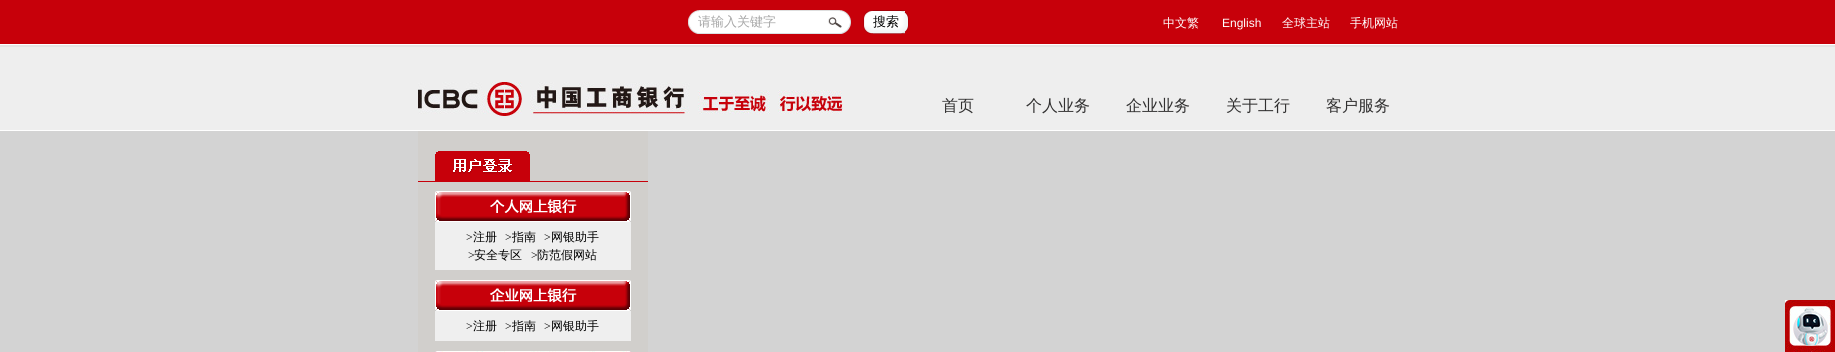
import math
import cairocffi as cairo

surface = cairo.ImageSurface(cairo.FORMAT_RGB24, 1835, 352)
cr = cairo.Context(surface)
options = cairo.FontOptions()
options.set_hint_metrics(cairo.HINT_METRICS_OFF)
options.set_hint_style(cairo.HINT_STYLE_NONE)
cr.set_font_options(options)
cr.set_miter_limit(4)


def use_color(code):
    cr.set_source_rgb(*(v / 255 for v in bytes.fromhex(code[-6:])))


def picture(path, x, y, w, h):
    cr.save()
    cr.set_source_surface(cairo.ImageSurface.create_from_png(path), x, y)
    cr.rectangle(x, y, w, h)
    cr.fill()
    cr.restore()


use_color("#d3d3d3")
cr.paint()
use_color("#c7000a")
cr.rectangle(0, 0, 1835, 44)
cr.fill()
use_color("#ffffff")
cr.rectangle(0, 44, 1835, 1)
cr.fill()
picture("img1.png", 688, 10, 163, 24)
cr.select_font_face("WenQuanYi Zen Hei Medium")
cr.set_font_size(13)
use_color("#a6a6a6")
cr.move_to(698, 26)
cr.show_text("请输入关键字")
picture("img2.png", 863, 10, 42, 24)
picture("img3.png", 873, 10, 36, 24)
use_color("#000000")
cr.move_to(873, 26)
cr.show_text("搜索")
cr.set_font_size(12)
use_color("#ffffff")
cr.move_to(1163, 27)
cr.show_text("中文繁")
cr.select_font_face("Liberation Sans")
cr.move_to(1222, 27)
cr.show_text("English")
cr.select_font_face("WenQuanYi Zen Hei Medium")
cr.move_to(1282, 27)
cr.show_text("全球主站")
cr.move_to(1350, 27)
cr.show_text("手机网站")
use_color("#e4e4e4")
cr.rectangle(0, 45, 1835, 2)
cr.fill()
use_color("#eeeeee")
cr.rectangle(0, 47, 1835, 83)
cr.fill()
use_color("#ffffff")
cr.rectangle(0, 130, 1835, 1)
cr.fill()
picture("img4.png", 418, 82, 425, 34)
cr.set_font_size(16)
use_color("#313030")
cr.move_to(942, 111)
cr.show_text("首页")
cr.move_to(1026, 111)
cr.show_text("个人业务")
cr.move_to(1126, 111)
cr.show_text("企业业务")
cr.move_to(1226, 111)
cr.show_text("关于工行")
cr.move_to(1326, 111)
cr.show_text("客户服务")
use_color("#d1cfcc")
cr.rectangle(418, 131, 230, 221)
cr.fill()
use_color("#c7000a")
cr.rectangle(418, 181, 230, 1)
cr.fill()
picture("img5.png", 435, 151, 95, 30)
picture("img6.png", 435, 191, 196, 31)
use_color("#efefef")
cr.rectangle(435, 222, 196, 48)
cr.fill()
cr.select_font_face("Liberation Serif")
cr.set_font_size(12)
use_color("#000000")
cr.move_to(466, 241)
cr.show_text(">")
cr.select_font_face("WenQuanYi Zen Hei Medium")
cr.move_to(473, 241)
cr.show_text("注册")
cr.select_font_face("Liberation Serif")
cr.move_to(505, 241)
cr.show_text(">")
cr.select_font_face("WenQuanYi Zen Hei Medium")
cr.move_to(512, 241)
cr.show_text("指南")
cr.select_font_face("Liberation Serif")
cr.move_to(544, 241)
cr.show_text(">")
cr.select_font_face("WenQuanYi Zen Hei Medium")
cr.move_to(551, 241)
cr.show_text("网银助手")
cr.select_font_face("Liberation Serif")
cr.move_to(468, 259)
cr.show_text(">")
cr.select_font_face("WenQuanYi Zen Hei Medium")
cr.move_to(474, 259)
cr.show_text("安全专区")
cr.select_font_face("Liberation Serif")
cr.move_to(531, 259)
cr.show_text(">")
cr.select_font_face("WenQuanYi Zen Hei Medium")
cr.move_to(537, 259)
cr.show_text("防范假网站")
picture("img7.png", 435, 280, 196, 31)
use_color("#efefef")
cr.rectangle(435, 311, 196, 30)
cr.fill()
cr.select_font_face("Liberation Serif")
use_color("#000000")
cr.move_to(466, 330)
cr.show_text(">")
cr.select_font_face("WenQuanYi Zen Hei Medium")
cr.move_to(473, 330)
cr.show_text("注册")
cr.select_font_face("Liberation Serif")
cr.move_to(505, 330)
cr.show_text(">")
cr.select_font_face("WenQuanYi Zen Hei Medium")
cr.move_to(512, 330)
cr.show_text("指南")
cr.select_font_face("Liberation Serif")
cr.move_to(544, 330)
cr.show_text(">")
cr.select_font_face("WenQuanYi Zen Hei Medium")
cr.move_to(551, 330)
cr.show_text("网银助手")
picture("img8.png", 435, 351, 196, 1)
picture("img9.png", 1785, 300, 50, 52)
surface.write_to_png("result.png")
